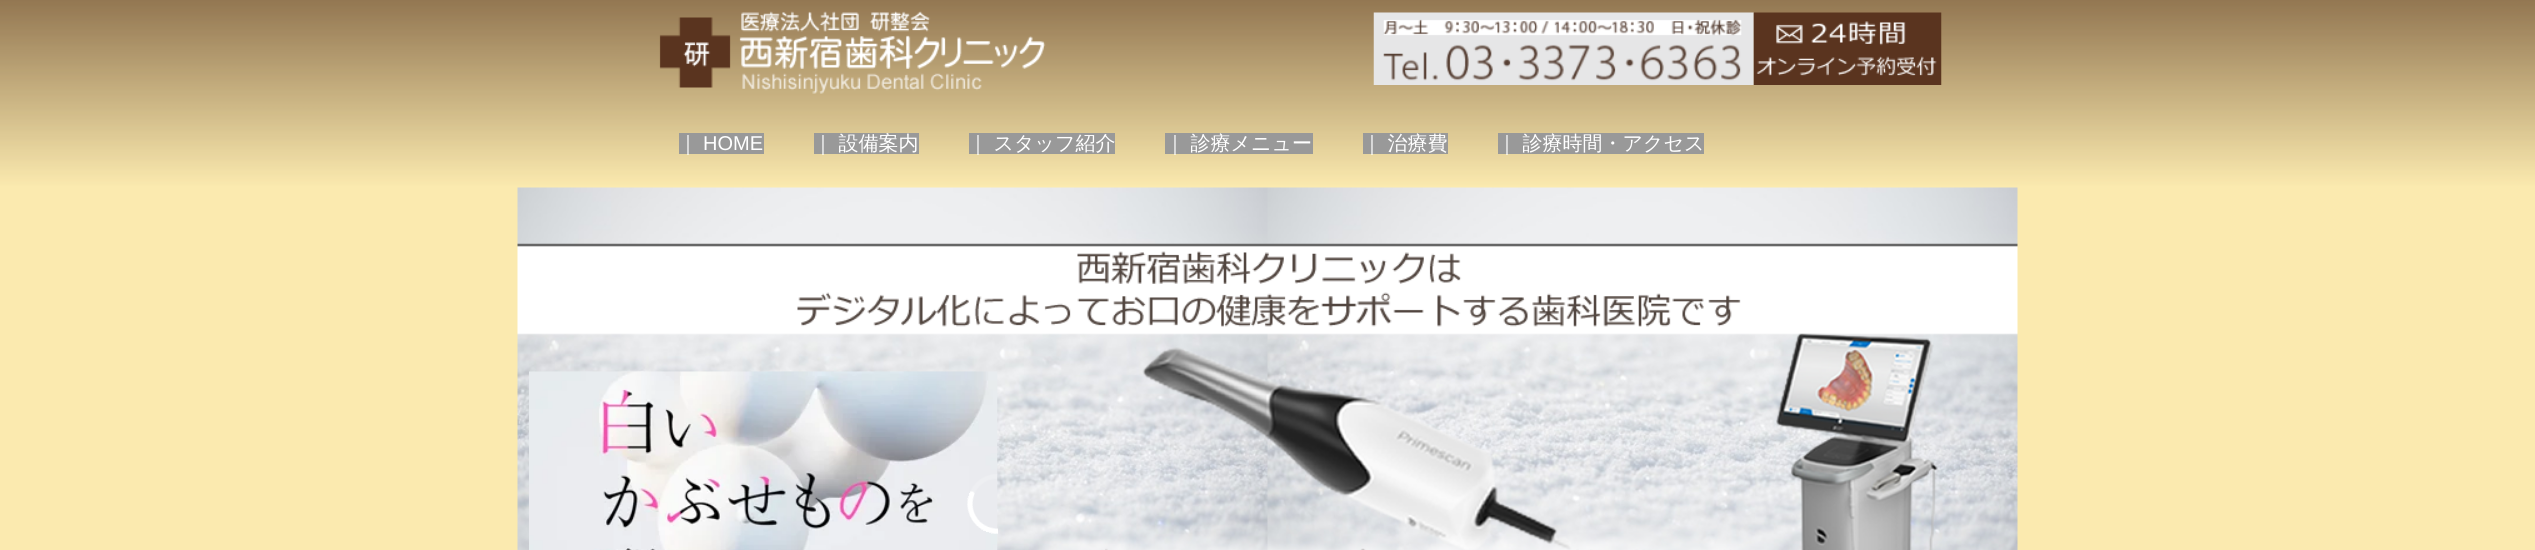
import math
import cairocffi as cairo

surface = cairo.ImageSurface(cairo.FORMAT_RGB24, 2535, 550)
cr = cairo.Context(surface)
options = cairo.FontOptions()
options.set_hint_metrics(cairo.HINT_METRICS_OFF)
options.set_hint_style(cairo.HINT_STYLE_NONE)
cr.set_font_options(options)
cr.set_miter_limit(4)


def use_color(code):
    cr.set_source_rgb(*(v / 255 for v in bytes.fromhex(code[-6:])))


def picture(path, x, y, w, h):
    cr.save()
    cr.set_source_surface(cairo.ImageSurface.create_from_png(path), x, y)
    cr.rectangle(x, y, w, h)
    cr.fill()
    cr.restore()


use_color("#ffffff")
cr.paint()
picture("img1.png", 0, 0, 2535, 550)
picture("img2.png", 659, 11, 387, 83)
picture("img3.png", 1373, 12, 381, 73)
picture("img4.png", 1753, 12, 189, 73)
use_color("#999999")
cr.rectangle(679, 133, 85, 21)
cr.fill()
cr.select_font_face("WenQuanYi Zen Hei Medium")
cr.set_font_size(20)
use_color("#ffffff")
cr.move_to(678, 150)
cr.show_text("｜")
cr.select_font_face("Liberation Sans")
cr.move_to(703, 150)
cr.show_text("HOME")
use_color("#999999")
cr.rectangle(814, 133, 105, 21)
cr.fill()
cr.select_font_face("WenQuanYi Zen Hei Medium")
use_color("#ffffff")
cr.move_to(813, 150)
cr.show_text("｜ 設備案内")
use_color("#999999")
cr.rectangle(969, 133, 146, 21)
cr.fill()
use_color("#ffffff")
cr.move_to(968, 150)
cr.show_text("｜ スタッフ紹介")
use_color("#999999")
cr.rectangle(1165, 133, 148, 21)
cr.fill()
use_color("#ffffff")
cr.move_to(1165, 150)
cr.show_text("｜ 診療メニュー")
use_color("#999999")
cr.rectangle(1363, 133, 85, 21)
cr.fill()
use_color("#ffffff")
cr.move_to(1362, 150)
cr.show_text("｜ 治療費")
use_color("#999999")
cr.rectangle(1498, 133, 206, 21)
cr.fill()
use_color("#ffffff")
cr.move_to(1497, 150)
cr.show_text("｜ 診療時間・アクセス")
picture("img5.png", 517, 187, 1501, 363)
picture("img6.png", 529, 371, 469, 179)
surface.write_to_png("result.png")
